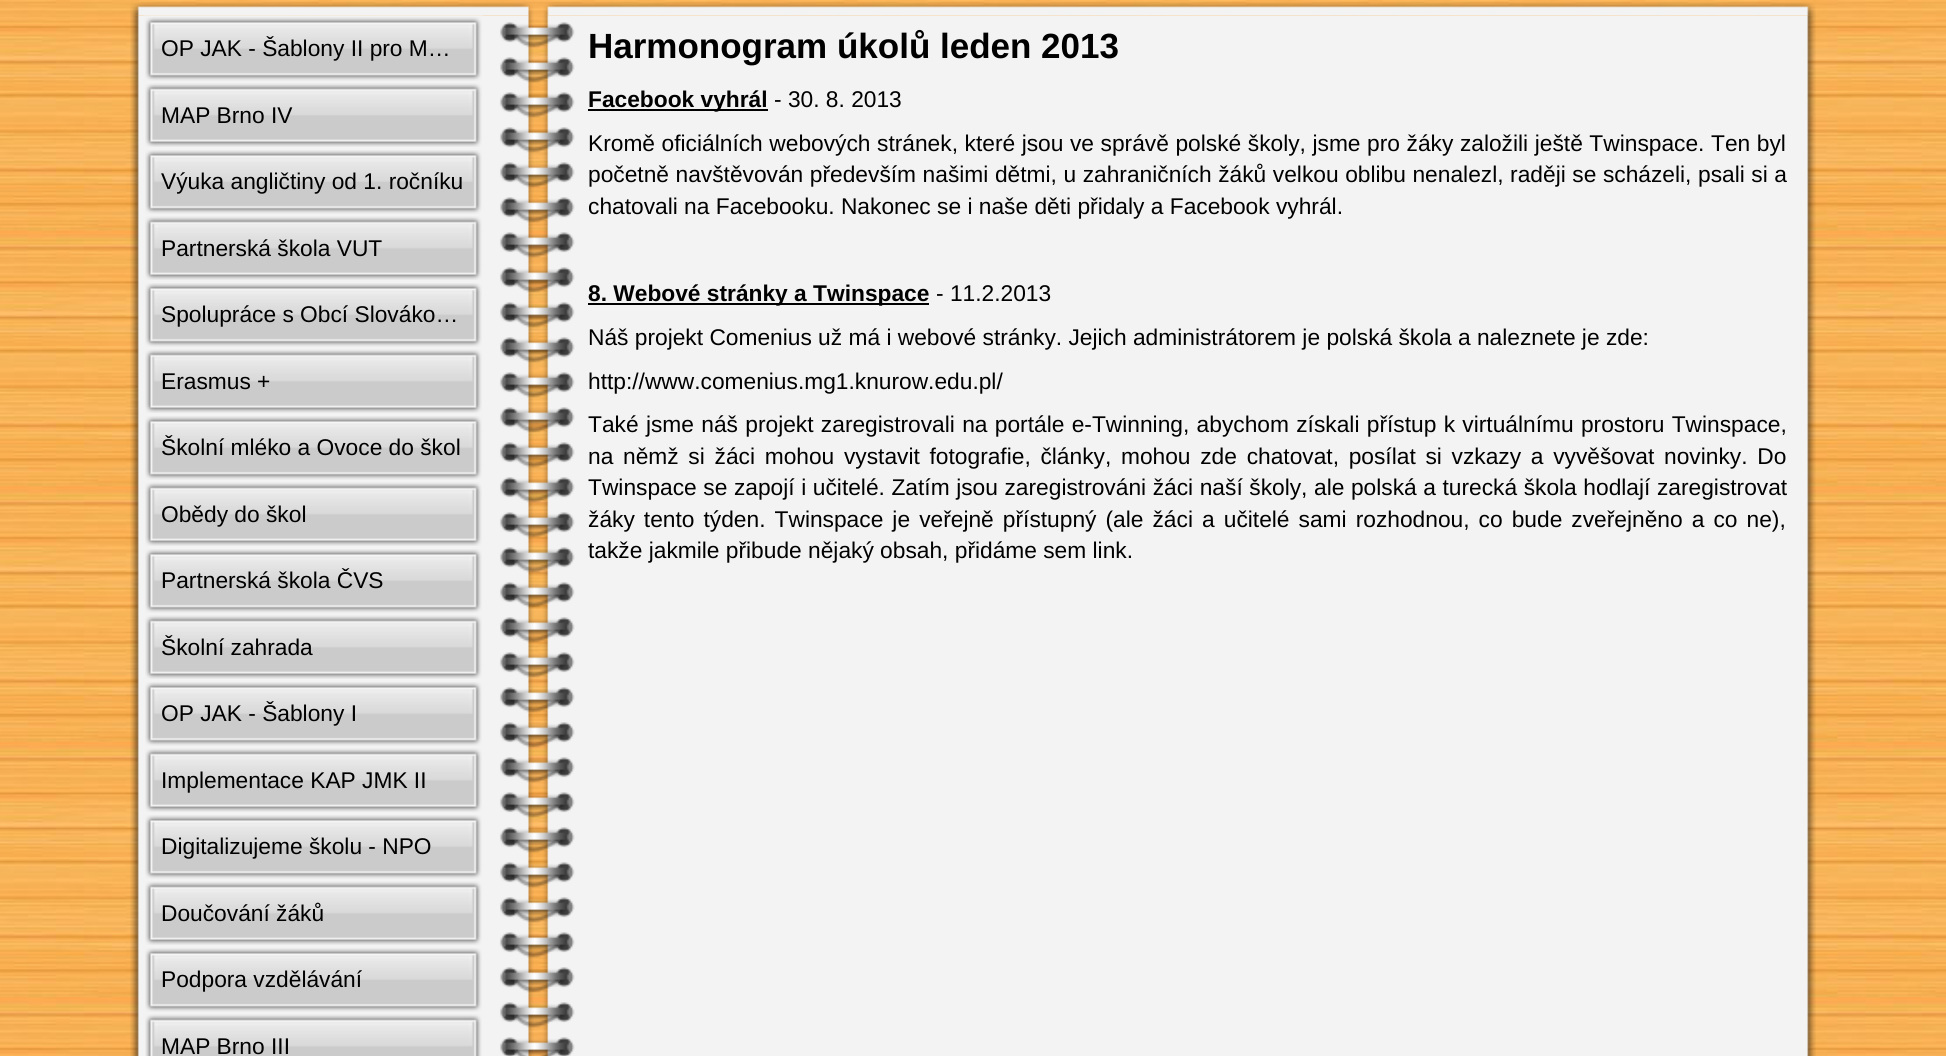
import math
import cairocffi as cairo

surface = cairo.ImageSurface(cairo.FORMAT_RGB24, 1946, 1056)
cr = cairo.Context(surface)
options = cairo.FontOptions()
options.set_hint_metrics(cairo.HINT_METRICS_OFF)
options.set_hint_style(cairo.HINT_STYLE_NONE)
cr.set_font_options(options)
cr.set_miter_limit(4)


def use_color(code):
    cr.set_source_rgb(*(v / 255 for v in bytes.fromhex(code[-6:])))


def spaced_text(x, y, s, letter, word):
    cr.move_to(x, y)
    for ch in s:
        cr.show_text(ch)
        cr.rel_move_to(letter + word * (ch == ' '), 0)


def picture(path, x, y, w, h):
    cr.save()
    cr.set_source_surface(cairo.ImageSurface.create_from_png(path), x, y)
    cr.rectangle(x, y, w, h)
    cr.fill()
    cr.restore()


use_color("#ffffff")
cr.paint()
picture("img1.png", 0, 0, 1946, 1056)
picture("img2.png", 130, 2, 1686, 14)
picture("img3.png", 130, 15, 1686, 1041)
picture("img4.png", 143, 15, 340, 66)
cr.select_font_face("Liberation Sans")
cr.set_font_size(22.75)
use_color("#000000")
cr.move_to(161, 56)
cr.show_text("OP JAK - Šablony II pro M…")
picture("img5.png", 145, 83, 337, 64)
cr.move_to(161, 123)
cr.show_text("MAP Brno IV")
picture("img6.png", 145, 150, 337, 64)
cr.move_to(161, 189)
cr.show_text("Výuka angličtiny od 1. ročníku")
picture("img5.png", 145, 216, 337, 64)
cr.move_to(161, 256)
cr.show_text("Partnerská škola VUT")
picture("img6.png", 145, 283, 337, 64)
cr.move_to(161, 322)
cr.show_text("Spolupráce s Obcí Slováko…")
picture("img5.png", 145, 349, 337, 64)
cr.move_to(161, 389)
cr.show_text("Erasmus +")
picture("img6.png", 145, 416, 337, 64)
cr.move_to(161, 455)
cr.show_text("Školní mléko a Ovoce do škol")
picture("img5.png", 145, 482, 337, 64)
cr.move_to(161, 522)
cr.show_text("Obědy do škol")
picture("img6.png", 145, 549, 337, 64)
cr.move_to(161, 588)
cr.show_text("Partnerská škola ČVS")
picture("img5.png", 145, 615, 337, 64)
cr.move_to(161, 655)
cr.show_text("Školní zahrada")
picture("img6.png", 145, 682, 337, 64)
cr.move_to(161, 721)
cr.show_text("OP JAK - Šablony I")
picture("img5.png", 145, 748, 337, 64)
cr.move_to(161, 788)
cr.show_text("Implementace KAP JMK II")
picture("img6.png", 145, 815, 337, 64)
cr.move_to(161, 854)
cr.show_text("Digitalizujeme školu - NPO")
picture("img5.png", 145, 881, 337, 64)
cr.move_to(161, 921)
cr.show_text("Doučování žáků")
picture("img6.png", 145, 948, 337, 64)
cr.move_to(161, 987)
cr.show_text("Podpora vzdělávání")
picture("img7.png", 145, 1014, 337, 42)
cr.move_to(161, 1054)
cr.show_text("MAP Brno III")
cr.select_font_face("Liberation Sans", cairo.FONT_SLANT_NORMAL, cairo.FONT_WEIGHT_BOLD)
cr.set_font_size(35)
cr.move_to(588, 58)
cr.show_text("Harmonogram úkolů leden 2013")
cr.rectangle(588, 109, 180, 2)
cr.fill()
cr.set_font_size(22.75)
cr.move_to(588, 107)
cr.show_text("Facebook vyhrál")
cr.select_font_face("Liberation Sans")
cr.move_to(774, 107)
cr.show_text("- 30. 8. 2013")
spaced_text(588, 151, "Kromě oficiálních webových stránek, které jsou ve správě polské školy, jsme pro žáky založili ještě Twinspace. Ten byl", 0, 0.25)
spaced_text(588, 182, "početně navštěvován především našimi dětmi, u zahraničních žáků velkou oblibu nenalezl, raději se scházeli, psali si a", 0, 0.25)
cr.move_to(588, 214)
cr.show_text("chatovali na Facebooku. Nakonec se i naše děti přidaly a Facebook vyhrál.")
cr.rectangle(588, 303, 341, 2)
cr.fill()
cr.select_font_face("Liberation Sans", cairo.FONT_SLANT_NORMAL, cairo.FONT_WEIGHT_BOLD)
cr.move_to(588, 301)
cr.show_text("8. Webové stránky a Twinspace")
cr.select_font_face("Liberation Sans")
cr.move_to(936, 301)
cr.show_text("- 11.2.2013")
cr.move_to(588, 345)
cr.show_text("Náš projekt Comenius už má i webové stránky. Jejich administrátorem je polská škola a naleznete je zde:")
cr.move_to(588, 389)
cr.show_text("http://www.comenius.mg1.knurow.edu.pl/")
spaced_text(588, 432, "Také jsme náš projekt zaregistrovali na portále e-Twinning, abychom získali přístup k virtuálnímu prostoru Twinspace,", 0, 1)
spaced_text(588, 464, "na němž si žáci mohou vystavit fotografie, články, mohou zde chatovat, posílat si vzkazy a vyvěšovat novinky. Do", 0, 3.4)
spaced_text(588, 495, "Twinspace se zapojí i učitelé. Zatím jsou zaregistrováni žáci naší školy, ale polská a turecká škola hodlají zaregistrovat", 0, 0.25)
spaced_text(588, 527, "žáky tento týden. Twinspace je veřejně přístupný (ale žáci a učitelé sami rozhodnou, co bude zveřejněno a co ne),", 0, 2.75)
cr.move_to(588, 558)
cr.show_text("takže jakmile přibude nějaký obsah, přidáme sem link.")
surface.write_to_png("result.png")
